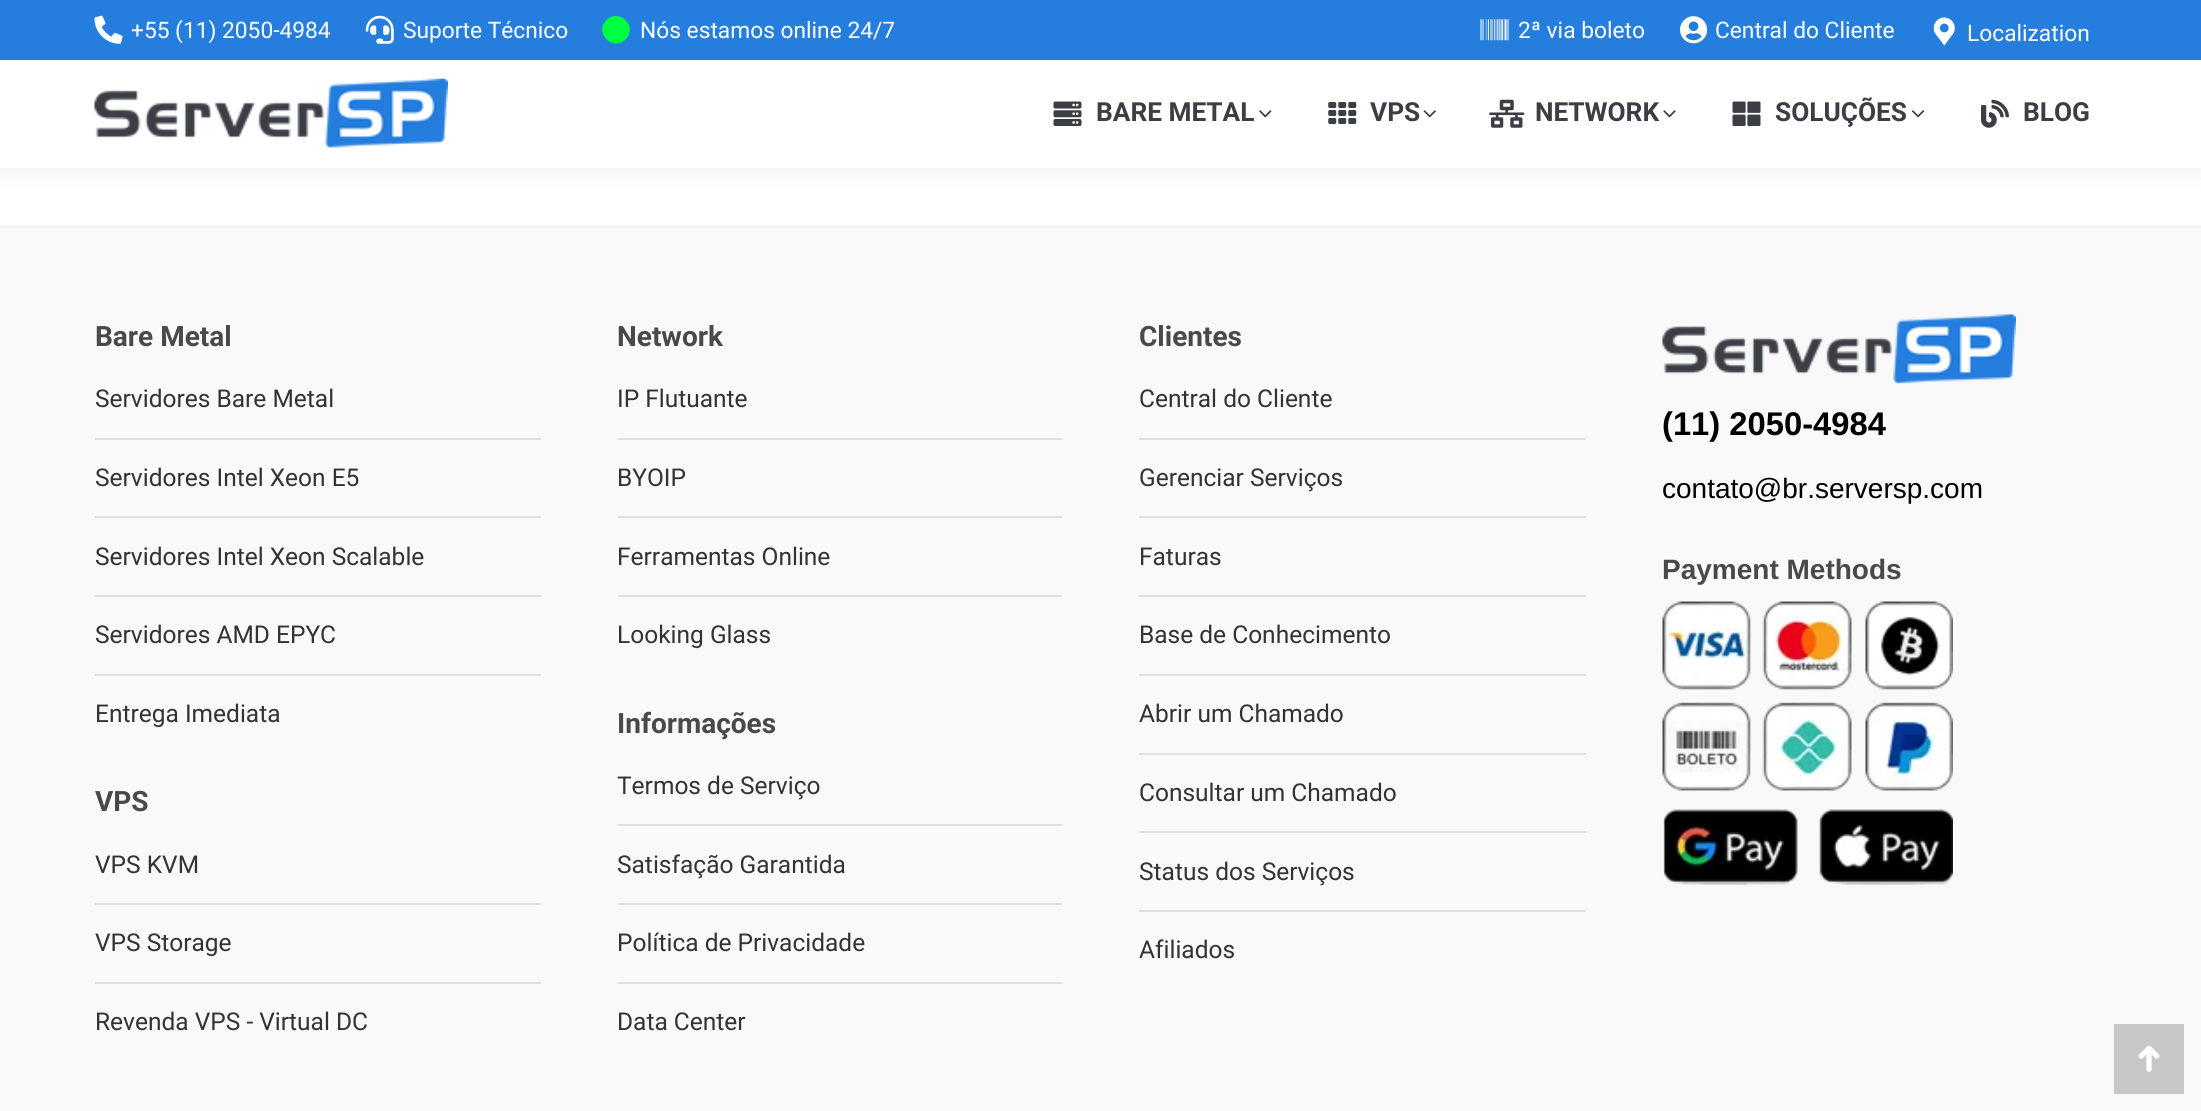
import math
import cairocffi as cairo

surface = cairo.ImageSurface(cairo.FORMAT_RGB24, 2201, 1111)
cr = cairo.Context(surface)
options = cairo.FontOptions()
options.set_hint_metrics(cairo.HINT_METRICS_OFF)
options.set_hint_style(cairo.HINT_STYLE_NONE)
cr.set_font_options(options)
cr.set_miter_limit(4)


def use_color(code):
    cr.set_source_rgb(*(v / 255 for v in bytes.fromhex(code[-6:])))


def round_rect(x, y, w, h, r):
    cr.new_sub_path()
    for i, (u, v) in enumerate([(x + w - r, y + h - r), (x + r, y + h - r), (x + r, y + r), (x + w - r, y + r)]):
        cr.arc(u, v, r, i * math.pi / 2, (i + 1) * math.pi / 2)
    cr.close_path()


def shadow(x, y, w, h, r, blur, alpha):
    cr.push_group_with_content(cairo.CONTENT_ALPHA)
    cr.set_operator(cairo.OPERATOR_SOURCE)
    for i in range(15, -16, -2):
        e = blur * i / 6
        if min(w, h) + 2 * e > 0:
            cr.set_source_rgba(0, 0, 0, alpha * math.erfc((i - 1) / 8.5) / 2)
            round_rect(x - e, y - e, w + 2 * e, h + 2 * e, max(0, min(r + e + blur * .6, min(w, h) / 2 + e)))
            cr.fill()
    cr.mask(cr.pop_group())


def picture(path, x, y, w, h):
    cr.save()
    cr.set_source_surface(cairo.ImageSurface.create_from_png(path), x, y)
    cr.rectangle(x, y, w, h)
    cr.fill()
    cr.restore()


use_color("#ffffff")
cr.paint()
use_color("#000000")
shadow(-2, -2, 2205, 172, 0, 13, 0.07)
use_color("#ffffff")
cr.rectangle(0, 60, 2201, 108)
cr.fill()
use_color("#257ede")
cr.rectangle(0, 0, 2201, 60)
cr.fill()
picture("img1.png", 94, 15, 29, 29)
cr.select_font_face("Roboto")
cr.set_font_size(22.75)
use_color("#ffffff")
cr.move_to(131, 38)
cr.show_text("+55 (11) 2050-4984")
picture("img2.png", 365, 15, 29, 29)
cr.move_to(403, 38)
cr.show_text("Suporte Técnico")
use_color("#00ff40")
cr.new_path()
cr.move_to(606.5, 20)
cr.curve_to(619, 7.5, 638.5, 26.5, 625.5, 39.5)
cr.curve_to(613, 52, 593.5, 33, 606.5, 20)
cr.close_path()
cr.fill()
use_color("#ffffff")
cr.move_to(640, 38)
cr.show_text("Nós estamos online 24/7")
picture("img3.png", 1480, 19, 29, 22)
cr.move_to(1518, 38)
cr.show_text("2ª via boleto")
picture("img4.png", 1680, 16, 28, 28)
cr.move_to(1715, 38)
cr.show_text("Central do Cliente")
picture("img5.png", 1933, 17, 22, 29)
cr.move_to(1967, 41)
cr.show_text("Localization")
picture("img6.png", 94, 78, 354, 70)
picture("img7.png", 1053, 101, 29, 25)
cr.select_font_face("Roboto", cairo.FONT_SLANT_NORMAL, cairo.FONT_WEIGHT_BOLD)
cr.set_font_size(26.25)
use_color("#3c3e45")
cr.move_to(1096, 121)
cr.show_text("BARE METAL")
picture("img8.png", 1259, 110, 13, 8)
picture("img9.png", 1328, 102, 29, 22)
cr.move_to(1370, 121)
cr.show_text("VPS")
picture("img10.png", 1423, 110, 13, 8)
picture("img11.png", 1489, 99, 36, 29)
cr.move_to(1535, 121)
cr.show_text("NETWORK")
picture("img12.png", 1663, 110, 13, 8)
picture("img13.png", 1732, 101, 29, 25)
cr.move_to(1775, 121)
cr.show_text("SOLUÇÕES")
picture("img14.png", 1911, 110, 14, 8)
picture("img15.png", 1981, 99, 28, 29)
cr.move_to(2023, 121)
cr.show_text("BLOG")
use_color("#f9f9f9")
cr.rectangle(0, 228, 2201, 883)
cr.fill()
use_color("#f2f2f2")
cr.rectangle(0, 226, 2201, 2)
cr.fill()
cr.set_font_size(28)
use_color("#494949")
cr.move_to(95, 346)
cr.show_text("Bare Metal")
cr.select_font_face("Roboto")
cr.set_font_size(24.5)
use_color("#333333")
cr.move_to(95, 407)
cr.show_text("Servidores Bare Metal")
use_color("#dfdfdf")
cr.rectangle(95, 438, 446, 2)
cr.fill()
use_color("#333333")
cr.move_to(95, 486)
cr.show_text("Servidores Intel Xeon E5")
use_color("#dfdfdf")
cr.rectangle(95, 516, 446, 2)
cr.fill()
use_color("#333333")
cr.move_to(95, 565)
cr.show_text("Servidores Intel Xeon Scalable")
use_color("#dfdfdf")
cr.rectangle(95, 595, 446, 2)
cr.fill()
use_color("#333333")
cr.move_to(95, 643)
cr.show_text("Servidores AMD EPYC")
use_color("#dfdfdf")
cr.rectangle(95, 674, 446, 2)
cr.fill()
use_color("#333333")
cr.move_to(95, 722)
cr.show_text("Entrega Imediata")
cr.select_font_face("Roboto", cairo.FONT_SLANT_NORMAL, cairo.FONT_WEIGHT_BOLD)
cr.set_font_size(28)
use_color("#494949")
cr.move_to(95, 811)
cr.show_text("VPS")
cr.select_font_face("Roboto")
cr.set_font_size(24.5)
use_color("#333333")
cr.move_to(95, 873)
cr.show_text("VPS KVM")
use_color("#dfdfdf")
cr.rectangle(95, 903, 446, 2)
cr.fill()
use_color("#333333")
cr.move_to(95, 951)
cr.show_text("VPS Storage")
use_color("#dfdfdf")
cr.rectangle(95, 982, 446, 2)
cr.fill()
use_color("#333333")
cr.move_to(95, 1030)
cr.show_text("Revenda VPS - Virtual DC")
cr.select_font_face("Roboto", cairo.FONT_SLANT_NORMAL, cairo.FONT_WEIGHT_BOLD)
cr.set_font_size(28)
use_color("#494949")
cr.move_to(617, 346)
cr.show_text("Network")
cr.select_font_face("Roboto")
cr.set_font_size(24.5)
use_color("#333333")
cr.move_to(617, 407)
cr.show_text("IP Flutuante")
use_color("#dfdfdf")
cr.rectangle(618, 438, 444, 2)
cr.fill()
use_color("#333333")
cr.move_to(617, 486)
cr.show_text("BYOIP")
use_color("#dfdfdf")
cr.rectangle(618, 516, 444, 2)
cr.fill()
use_color("#333333")
cr.move_to(617, 565)
cr.show_text("Ferramentas Online")
use_color("#dfdfdf")
cr.rectangle(618, 595, 444, 2)
cr.fill()
use_color("#333333")
cr.move_to(617, 643)
cr.show_text("Looking Glass")
cr.select_font_face("Roboto", cairo.FONT_SLANT_NORMAL, cairo.FONT_WEIGHT_BOLD)
cr.set_font_size(28)
use_color("#494949")
cr.move_to(617, 733)
cr.show_text("Informações")
cr.select_font_face("Roboto")
cr.set_font_size(24.5)
use_color("#333333")
cr.move_to(617, 794)
cr.show_text("Termos de Serviço")
use_color("#dfdfdf")
cr.rectangle(618, 824, 444, 2)
cr.fill()
use_color("#333333")
cr.move_to(617, 873)
cr.show_text("Satisfação Garantida")
use_color("#dfdfdf")
cr.rectangle(618, 903, 444, 2)
cr.fill()
use_color("#333333")
cr.move_to(617, 951)
cr.show_text("Política de Privacidade")
use_color("#dfdfdf")
cr.rectangle(618, 982, 444, 2)
cr.fill()
use_color("#333333")
cr.move_to(617, 1030)
cr.show_text("Data Center")
cr.select_font_face("Roboto", cairo.FONT_SLANT_NORMAL, cairo.FONT_WEIGHT_BOLD)
cr.set_font_size(28)
use_color("#494949")
cr.move_to(1139, 346)
cr.show_text("Clientes")
cr.select_font_face("Roboto")
cr.set_font_size(24.5)
use_color("#333333")
cr.move_to(1139, 407)
cr.show_text("Central do Cliente")
use_color("#dfdfdf")
cr.rectangle(1139, 438, 447, 2)
cr.fill()
use_color("#333333")
cr.move_to(1139, 486)
cr.show_text("Gerenciar Serviços")
use_color("#dfdfdf")
cr.rectangle(1139, 516, 447, 2)
cr.fill()
use_color("#333333")
cr.move_to(1139, 565)
cr.show_text("Faturas")
use_color("#dfdfdf")
cr.rectangle(1139, 595, 447, 2)
cr.fill()
use_color("#333333")
cr.move_to(1139, 643)
cr.show_text("Base de Conhecimento")
use_color("#dfdfdf")
cr.rectangle(1139, 674, 447, 2)
cr.fill()
use_color("#333333")
cr.move_to(1139, 722)
cr.show_text("Abrir um Chamado")
use_color("#dfdfdf")
cr.rectangle(1139, 753, 447, 2)
cr.fill()
use_color("#333333")
cr.move_to(1139, 801)
cr.show_text("Consultar um Chamado")
use_color("#dfdfdf")
cr.rectangle(1139, 831, 447, 2)
cr.fill()
use_color("#333333")
cr.move_to(1139, 880)
cr.show_text("Status dos Serviços")
use_color("#dfdfdf")
cr.rectangle(1139, 910, 447, 2)
cr.fill()
use_color("#333333")
cr.move_to(1139, 958)
cr.show_text("Afiliados")
picture("img16.png", 1662, 314, 354, 70)
cr.select_font_face("Liberation Sans", cairo.FONT_SLANT_NORMAL, cairo.FONT_WEIGHT_BOLD)
cr.set_font_size(32.75)
use_color("#000000")
cr.move_to(1662, 435)
cr.show_text("(11) 2050-4984")
cr.select_font_face("Liberation Sans")
cr.set_font_size(28)
cr.move_to(1662, 498)
cr.show_text("contato@br.serversp.com")
cr.select_font_face("Liberation Sans", cairo.FONT_SLANT_NORMAL, cairo.FONT_WEIGHT_BOLD)
use_color("#494949")
cr.move_to(1662, 579)
cr.show_text("Payment Methods")
picture("img17.png", 1662, 601, 291, 284)
use_color("#c7c7c7")
cr.rectangle(2114, 1024, 70, 70)
cr.fill()
picture("img18.png", 2138, 1045, 22, 27)
surface.write_to_png("result.png")
